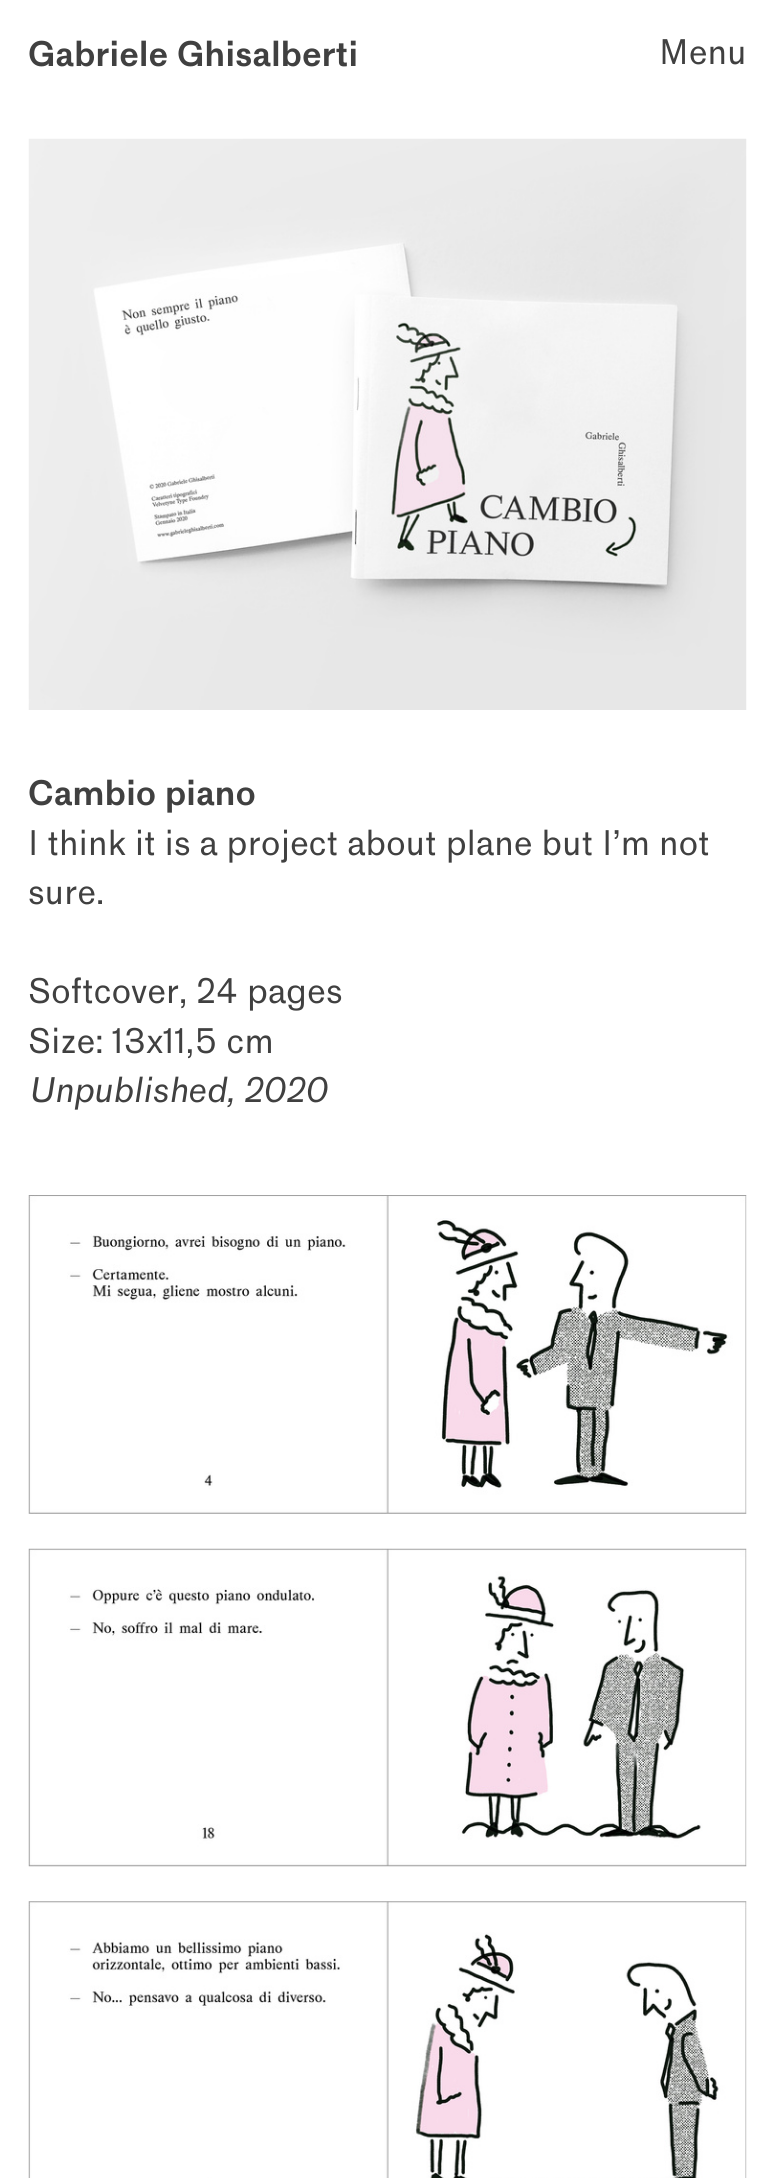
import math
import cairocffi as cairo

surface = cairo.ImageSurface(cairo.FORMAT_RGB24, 775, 2178)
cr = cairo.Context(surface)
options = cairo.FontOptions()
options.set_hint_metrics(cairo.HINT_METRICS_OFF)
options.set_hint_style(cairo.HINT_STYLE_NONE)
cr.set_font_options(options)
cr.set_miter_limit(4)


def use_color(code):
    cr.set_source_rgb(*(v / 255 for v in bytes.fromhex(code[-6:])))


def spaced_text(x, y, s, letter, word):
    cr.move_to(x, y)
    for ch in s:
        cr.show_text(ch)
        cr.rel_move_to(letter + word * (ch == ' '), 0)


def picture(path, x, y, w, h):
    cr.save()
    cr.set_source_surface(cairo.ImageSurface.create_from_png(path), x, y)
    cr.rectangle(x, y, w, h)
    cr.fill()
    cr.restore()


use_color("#ffffff")
cr.paint()
cr.select_font_face("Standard", cairo.FONT_SLANT_NORMAL, cairo.FONT_WEIGHT_BOLD)
cr.set_font_size(33)
use_color("#404040")
spaced_text(28, 66, "Gabriele Ghisalberti", 0.35, 0)
cr.select_font_face("Standard")
spaced_text(659, 64, "Menu", 0.35, 0)
picture("img1.png", 28, 138, 719, 572)
cr.select_font_face("Standard", cairo.FONT_SLANT_NORMAL, cairo.FONT_WEIGHT_BOLD)
spaced_text(28, 805, "Cambio piano", 0.35, 0)
cr.select_font_face("Standard")
spaced_text(28, 855, "I think it is a project about plane but I’m not", 0.35, 0)
spaced_text(28, 904, "sure.", 0.35, 0)
spaced_text(28, 1003, "Softcover, 24 pages", 0.35, 0)
spaced_text(28, 1053, "Size: 13x11,5 cm", 0.35, 0)
cr.select_font_face("Standard", cairo.FONT_SLANT_ITALIC)
spaced_text(28, 1102, "Unpublished, 2020", 0.35, 0)
picture("img2.png", 28, 1195, 719, 319)
picture("img3.png", 28, 1548, 719, 319)
picture("img4.png", 28, 1901, 719, 277)
surface.write_to_png("result.png")
